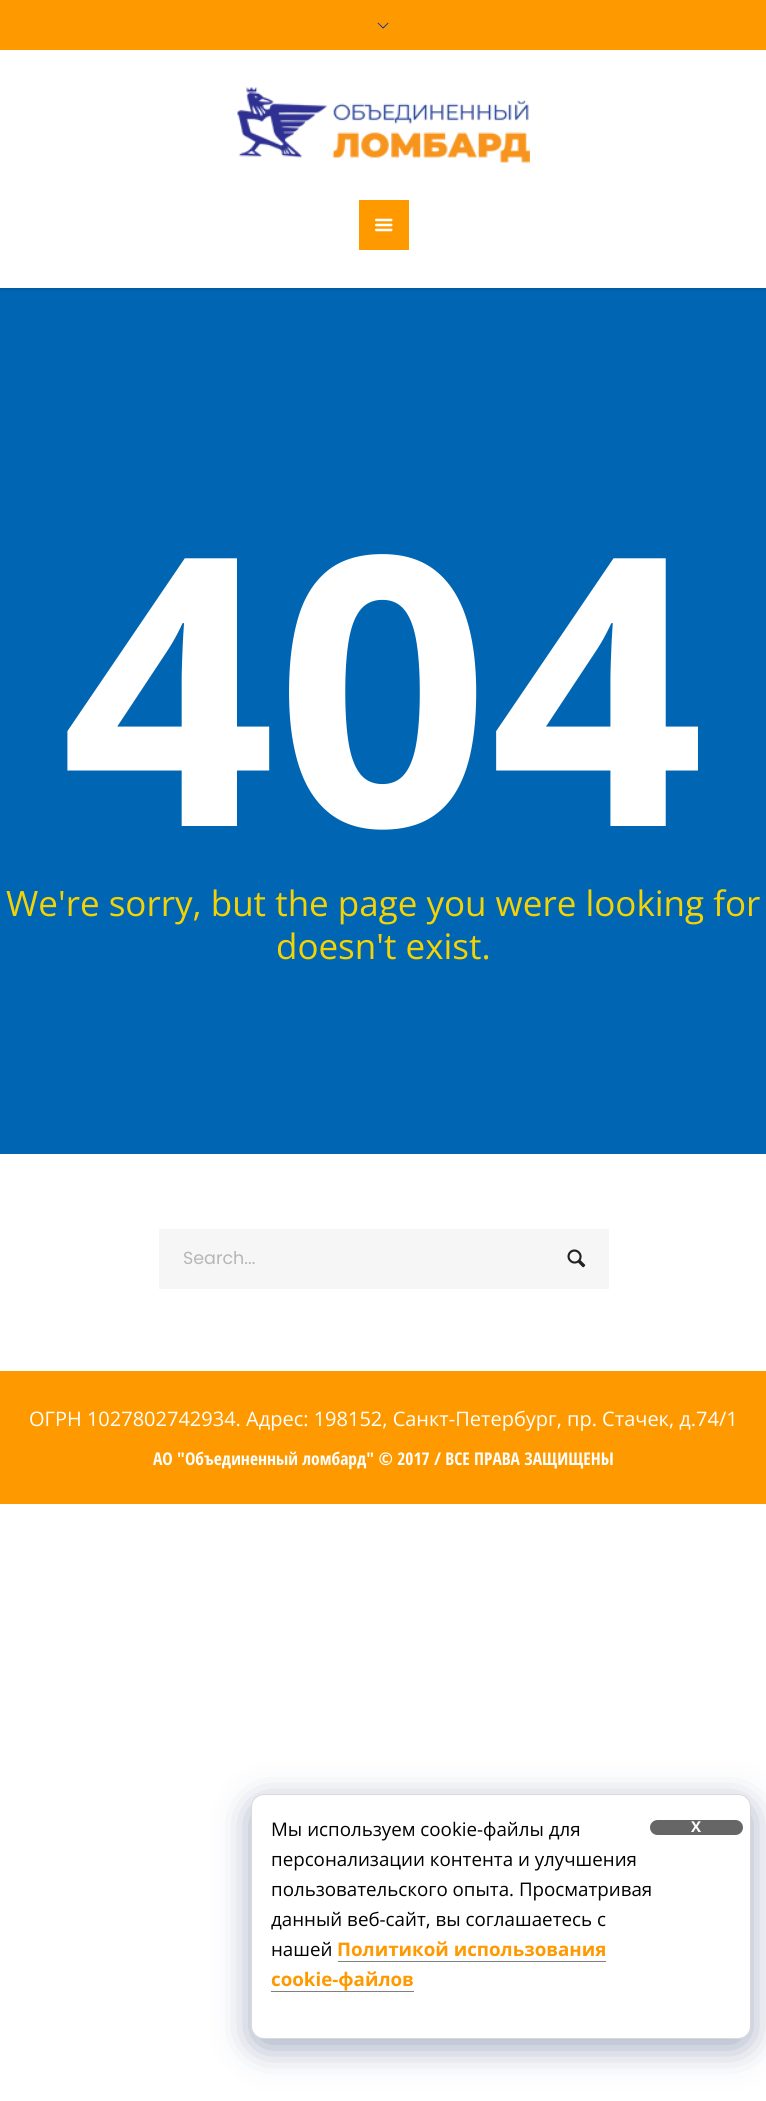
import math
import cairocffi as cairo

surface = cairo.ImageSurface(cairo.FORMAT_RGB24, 766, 2101)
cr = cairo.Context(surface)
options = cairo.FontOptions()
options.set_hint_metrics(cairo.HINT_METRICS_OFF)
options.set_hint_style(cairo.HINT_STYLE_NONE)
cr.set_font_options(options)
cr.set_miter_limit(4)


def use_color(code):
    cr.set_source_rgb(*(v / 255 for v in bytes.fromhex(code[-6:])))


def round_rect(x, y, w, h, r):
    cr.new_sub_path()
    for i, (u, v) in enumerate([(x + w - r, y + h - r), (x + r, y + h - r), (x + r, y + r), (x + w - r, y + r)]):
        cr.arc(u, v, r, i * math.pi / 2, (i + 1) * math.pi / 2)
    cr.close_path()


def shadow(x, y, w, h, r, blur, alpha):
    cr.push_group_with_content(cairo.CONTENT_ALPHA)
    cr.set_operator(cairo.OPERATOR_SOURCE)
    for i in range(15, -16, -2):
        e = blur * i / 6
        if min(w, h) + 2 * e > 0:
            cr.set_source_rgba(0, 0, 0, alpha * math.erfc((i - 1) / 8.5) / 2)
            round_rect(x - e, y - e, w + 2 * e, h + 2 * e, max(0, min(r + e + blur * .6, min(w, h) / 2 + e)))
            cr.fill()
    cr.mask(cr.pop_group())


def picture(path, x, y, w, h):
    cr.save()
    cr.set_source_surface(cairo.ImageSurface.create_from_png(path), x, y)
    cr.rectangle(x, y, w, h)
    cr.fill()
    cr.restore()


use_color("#ffffff")
cr.paint()
use_color("#0065b2")
cr.rectangle(0, 288, 766, 866)
cr.fill()
use_color("#000000")
shadow(-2, -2, 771, 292, 0, 1, 0.1)
use_color("#ff9900")
cr.rectangle(0, 0, 766, 50)
cr.fill()
picture("img1.png", 377, 22, 12, 7)
use_color("#ffffff")
cr.rectangle(0, 50, 766, 238)
cr.fill()
picture("img2.png", 237, 87, 293, 76)
use_color("#ff9900")
cr.rectangle(359, 200, 50, 50)
cr.fill()
picture("img3.png", 375, 218, 18, 14)
cr.select_font_face("Open Sans", cairo.FONT_SLANT_NORMAL, cairo.FONT_WEIGHT_BOLD)
cr.set_font_size(375)
use_color("#ffffff")
cr.move_to(61, 826)
cr.show_text("404")
cr.select_font_face("Open Sans")
cr.set_font_size(35)
use_color("#f3d303")
cr.move_to(6, 916)
cr.show_text("We're sorry, but the page you were looking for")
cr.move_to(276, 959)
cr.show_text("doesn't exist.")
use_color("#f6f6f6")
cr.rectangle(159, 1229, 450, 60)
cr.fill()
cr.select_font_face("Poppins")
cr.set_font_size(17.5)
use_color("#b6b6b6")
cr.move_to(183, 1264)
cr.show_text("Search...")
picture("img4.png", 567, 1249, 19, 19)
use_color("#ff9900")
cr.rectangle(0, 1371, 766, 133)
cr.fill()
cr.select_font_face("Open Sans")
cr.set_font_size(20)
use_color("#ffffff")
cr.move_to(29, 1426)
cr.show_text("ОГРН 1027802742934. Адрес: 198152, Санкт-Петербург, пр. Стачек, д.74/1")
cr.select_font_face("Open Sans Condensed", cairo.FONT_SLANT_NORMAL, cairo.FONT_WEIGHT_BOLD)
cr.set_font_size(17.5)
cr.move_to(153, 1465)
cr.show_text("АО \"Объединенный ломбард\" © 2017 / ВСЕ ПРАВА ЗАЩИЩЕНЫ")
use_color("#172b63")
shadow(251, 1803, 500, 245, 13, 17.5, 0.4)
use_color("#ffffff")
round_rect(251, 1794, 500, 245, 13)
cr.fill()
round_rect(251.5, 1794.5, 499, 244, 12.5)
cr.set_source_rgba(0, 0, 0, 0.15)
cr.set_line_width(1)
cr.stroke()
cr.select_font_face("Open Sans")
cr.set_font_size(18.75)
use_color("#000000")
cr.move_to(271, 1836)
cr.show_text("Мы используем cookie-файлы для")
cr.move_to(271, 1866)
cr.show_text("персонализации контента и улучшения")
cr.move_to(271, 1896)
cr.show_text("пользовательского опыта. Просматривая")
cr.move_to(271, 1926)
cr.show_text("данный веб-сайт, вы соглашаетесь с")
cr.move_to(271, 1956)
cr.show_text("нашей")
cr.select_font_face("Open Sans", cairo.FONT_SLANT_NORMAL, cairo.FONT_WEIGHT_BOLD)
use_color("#ff9900")
cr.move_to(337, 1956)
cr.show_text("Политикой использования")
use_color("#808080")
cr.rectangle(338, 1961, 268, 1)
cr.fill()
use_color("#ff9900")
cr.move_to(271, 1986)
cr.show_text("cookie-файлов")
use_color("#808080")
cr.rectangle(271, 1991, 143, 1)
cr.fill()
use_color("#666666")
round_rect(650, 1820, 93, 15, 7.5)
cr.fill()
cr.set_font_size(15)
use_color("#ffffff")
cr.move_to(691, 1832)
cr.show_text("X")
surface.write_to_png("result.png")
